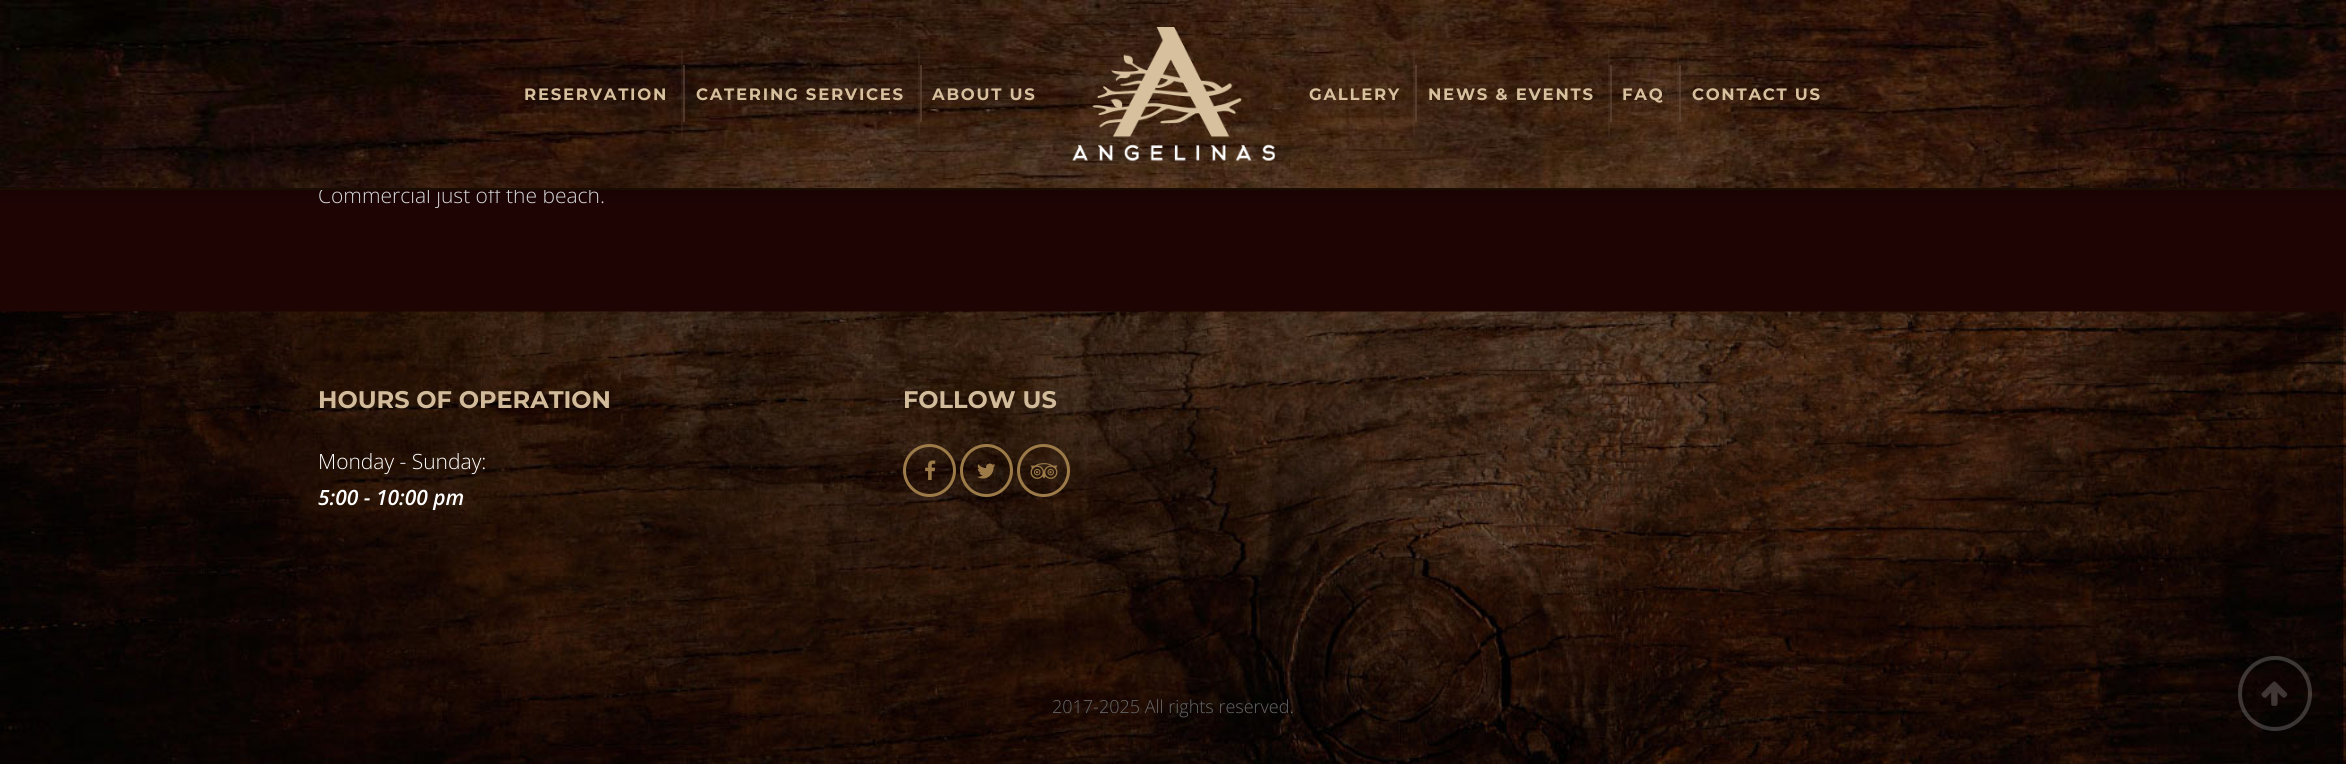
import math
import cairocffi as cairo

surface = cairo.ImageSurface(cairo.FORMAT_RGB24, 2346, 764)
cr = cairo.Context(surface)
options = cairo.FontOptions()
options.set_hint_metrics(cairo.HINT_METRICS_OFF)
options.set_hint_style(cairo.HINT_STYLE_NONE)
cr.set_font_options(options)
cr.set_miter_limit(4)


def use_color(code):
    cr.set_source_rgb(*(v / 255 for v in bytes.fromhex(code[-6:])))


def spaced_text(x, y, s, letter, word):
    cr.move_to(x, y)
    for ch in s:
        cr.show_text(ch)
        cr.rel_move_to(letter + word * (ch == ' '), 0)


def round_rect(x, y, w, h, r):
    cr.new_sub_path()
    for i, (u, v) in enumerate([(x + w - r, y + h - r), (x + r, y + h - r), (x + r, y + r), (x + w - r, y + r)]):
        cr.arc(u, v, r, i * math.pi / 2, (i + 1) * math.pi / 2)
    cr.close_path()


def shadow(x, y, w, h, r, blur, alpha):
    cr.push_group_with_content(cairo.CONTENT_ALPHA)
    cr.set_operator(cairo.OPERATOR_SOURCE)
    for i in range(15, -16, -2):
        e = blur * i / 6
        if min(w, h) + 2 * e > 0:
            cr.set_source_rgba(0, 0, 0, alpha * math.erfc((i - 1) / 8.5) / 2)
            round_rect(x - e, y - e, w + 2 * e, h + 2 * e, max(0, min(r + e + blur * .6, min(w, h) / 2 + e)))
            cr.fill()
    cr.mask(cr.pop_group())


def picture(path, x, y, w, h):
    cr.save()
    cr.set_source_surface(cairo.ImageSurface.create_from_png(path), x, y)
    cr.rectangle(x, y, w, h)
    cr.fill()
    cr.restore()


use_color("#1f0404")
cr.paint()
use_color("#000000")
shadow(0, 0, 2346, 189, 0, 11, 0.4)
cr.select_font_face("Open Sans Light")
cr.set_font_size(21)
use_color("#d6d8db")
cr.move_to(318, 203)
cr.show_text("Commercial just off the beach.")
picture("img1.png", 0, 0, 2346, 188)
use_color("#190c00")
cr.rectangle(0, 188, 2346, 2)
cr.fill()
cr.select_font_face("Montserrat", cairo.FONT_SLANT_NORMAL, cairo.FONT_WEIGHT_BOLD)
cr.set_font_size(16.5)
use_color("#d7c09e")
spaced_text(524, 100, "RESERVATION", 1.75, 0)
cr.set_source_rgba(0.408, 0.31, 0.251, 0.2)
cr.rectangle(681, 50, 2, 87)
cr.fill()
cr.set_source_rgba(0.408, 0.31, 0.251, 0.6)
cr.rectangle(683, 65, 2, 57)
cr.fill()
use_color("#d7c09e")
spaced_text(696, 100, "CATERING SERVICES", 1.75, 0)
cr.set_source_rgba(0.408, 0.31, 0.251, 0.2)
cr.rectangle(918, 50, 2, 87)
cr.fill()
cr.set_source_rgba(0.408, 0.31, 0.251, 0.6)
cr.rectangle(920, 65, 2, 57)
cr.fill()
use_color("#d7c09e")
spaced_text(932, 100, "ABOUT US", 1.75, 0)
picture("img2.png", 1072, 27, 203, 134)
spaced_text(1309, 100, "GALLERY", 1.75, 0)
cr.set_source_rgba(0.408, 0.31, 0.251, 0.2)
cr.rectangle(1413, 50, 2, 87)
cr.fill()
cr.set_source_rgba(0.408, 0.31, 0.251, 0.6)
cr.rectangle(1415, 65, 2, 57)
cr.fill()
use_color("#d7c09e")
spaced_text(1428, 100, "NEWS & EVENTS", 1.75, 0)
cr.set_source_rgba(0.408, 0.31, 0.251, 0.2)
cr.rectangle(1608, 50, 2, 87)
cr.fill()
cr.set_source_rgba(0.408, 0.31, 0.251, 0.6)
cr.rectangle(1610, 65, 2, 57)
cr.fill()
use_color("#d7c09e")
spaced_text(1622, 100, "FAQ", 1.75, 0)
cr.set_source_rgba(0.408, 0.31, 0.251, 0.2)
cr.rectangle(1677, 50, 2, 87)
cr.fill()
cr.set_source_rgba(0.408, 0.31, 0.251, 0.6)
cr.rectangle(1679, 65, 2, 57)
cr.fill()
use_color("#d7c09e")
spaced_text(1692, 100, "CONTACT US", 1.75, 0)
picture("img3.png", 0, 311, 2346, 453)
cr.set_font_size(24)
use_color("#d1bb9a")
cr.move_to(318, 408)
cr.show_text("HOURS OF OPERATION")
cr.select_font_face("Open Sans Light")
cr.set_font_size(21)
use_color("#ffffff")
cr.move_to(318, 469)
cr.show_text("Monday - Sunday:")
cr.select_font_face("Open Sans SemiBold", cairo.FONT_SLANT_ITALIC)
cr.move_to(318, 505)
cr.show_text("5:00 - 10:00 pm")
cr.select_font_face("Montserrat", cairo.FONT_SLANT_NORMAL, cairo.FONT_WEIGHT_BOLD)
cr.set_font_size(24)
use_color("#d1bb9a")
cr.move_to(903, 408)
cr.show_text("FOLLOW US")
cr.new_path()
cr.arc(929.5, 470.5, 25, 0, 2 * math.pi)
use_color("#9c7b49")
cr.set_line_width(3)
cr.stroke()
picture("img4.png", 925, 460, 11, 20)
cr.arc(986.5, 470.5, 25, 0, 2 * math.pi)
cr.stroke()
picture("img5.png", 977, 463, 19, 16)
cr.arc(1043.5, 470.5, 25, 0, 2 * math.pi)
cr.stroke()
picture("img6.png", 1030, 463, 28, 16)
cr.select_font_face("Open Sans Light")
cr.set_font_size(18)
use_color("#66686a")
cr.move_to(1052, 713)
cr.show_text("2017-2025 All rights reserved.")
round_rect(2240, 658, 70, 71, 35)
cr.set_source_rgba(1, 1, 1, 0.2)
cr.set_line_width(4)
cr.stroke()
picture("img7.png", 2261, 681, 27, 25)
surface.write_to_png("result.png")
